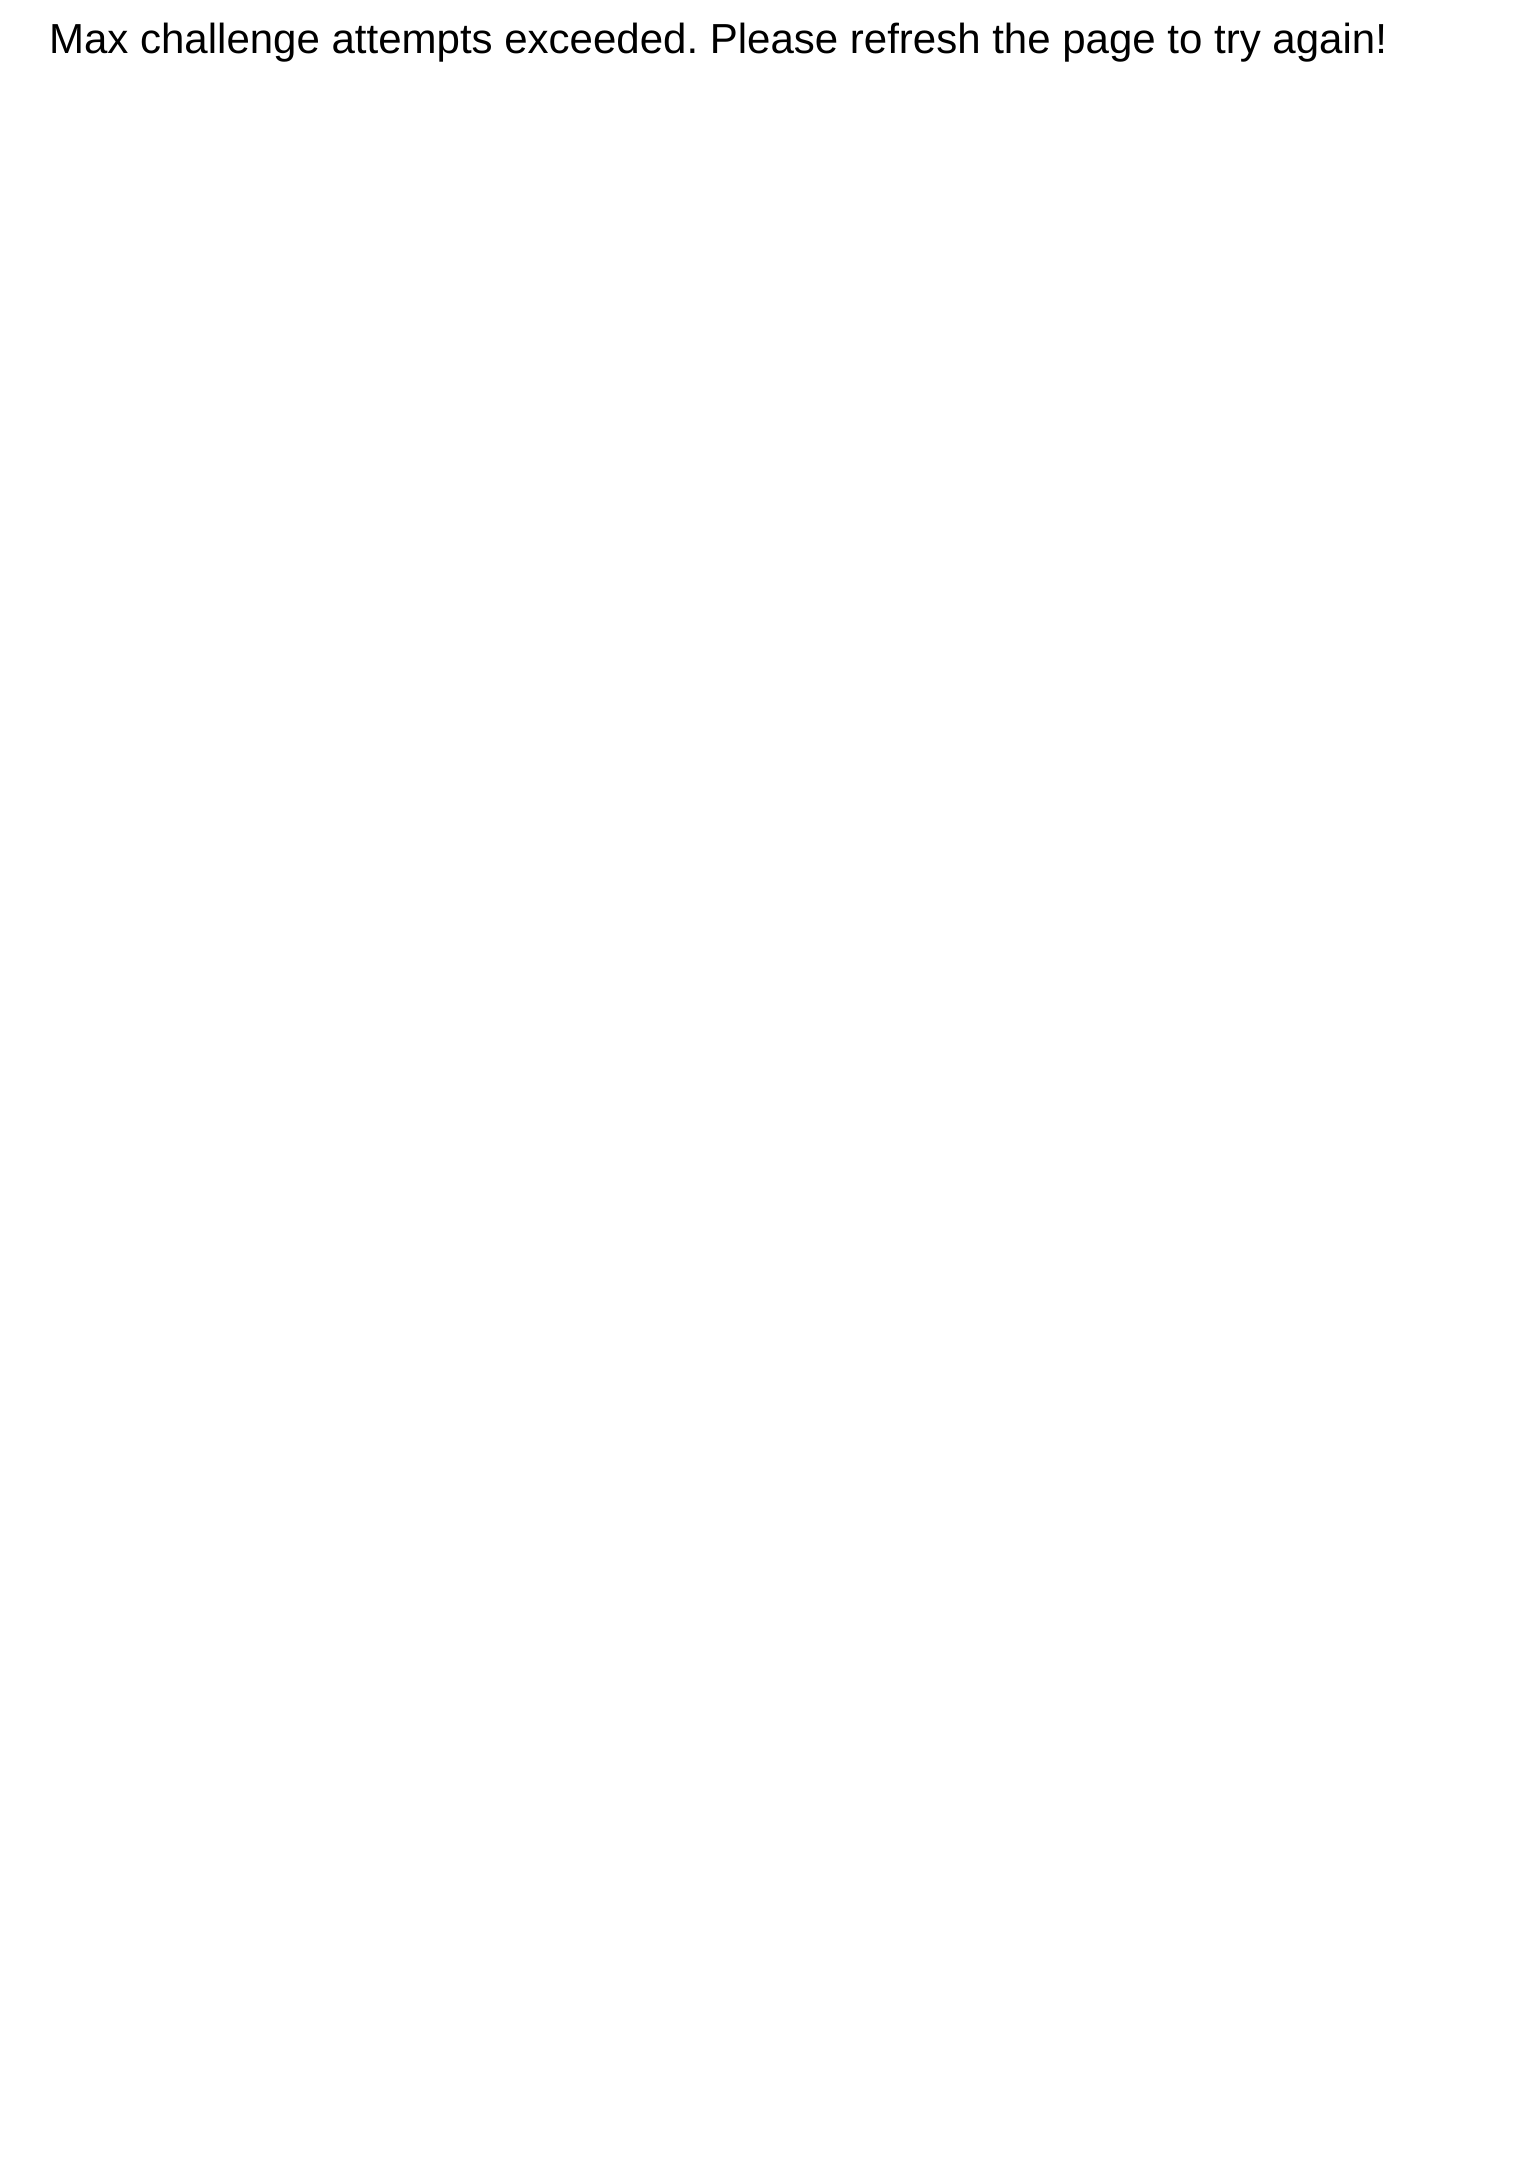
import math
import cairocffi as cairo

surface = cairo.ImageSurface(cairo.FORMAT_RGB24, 1532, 2168)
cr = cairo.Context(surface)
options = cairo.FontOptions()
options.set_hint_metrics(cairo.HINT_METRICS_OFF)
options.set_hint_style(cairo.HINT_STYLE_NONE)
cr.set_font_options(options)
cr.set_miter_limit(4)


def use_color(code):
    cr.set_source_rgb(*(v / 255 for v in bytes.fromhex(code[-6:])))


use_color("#ffffff")
cr.paint()
cr.select_font_face("Liberation Sans")
cr.set_font_size(42)
use_color("#000000")
cr.move_to(49, 53)
cr.show_text("Max challenge attempts exceeded. Please refresh the page to try again!")
surface.write_to_png("result.png")
